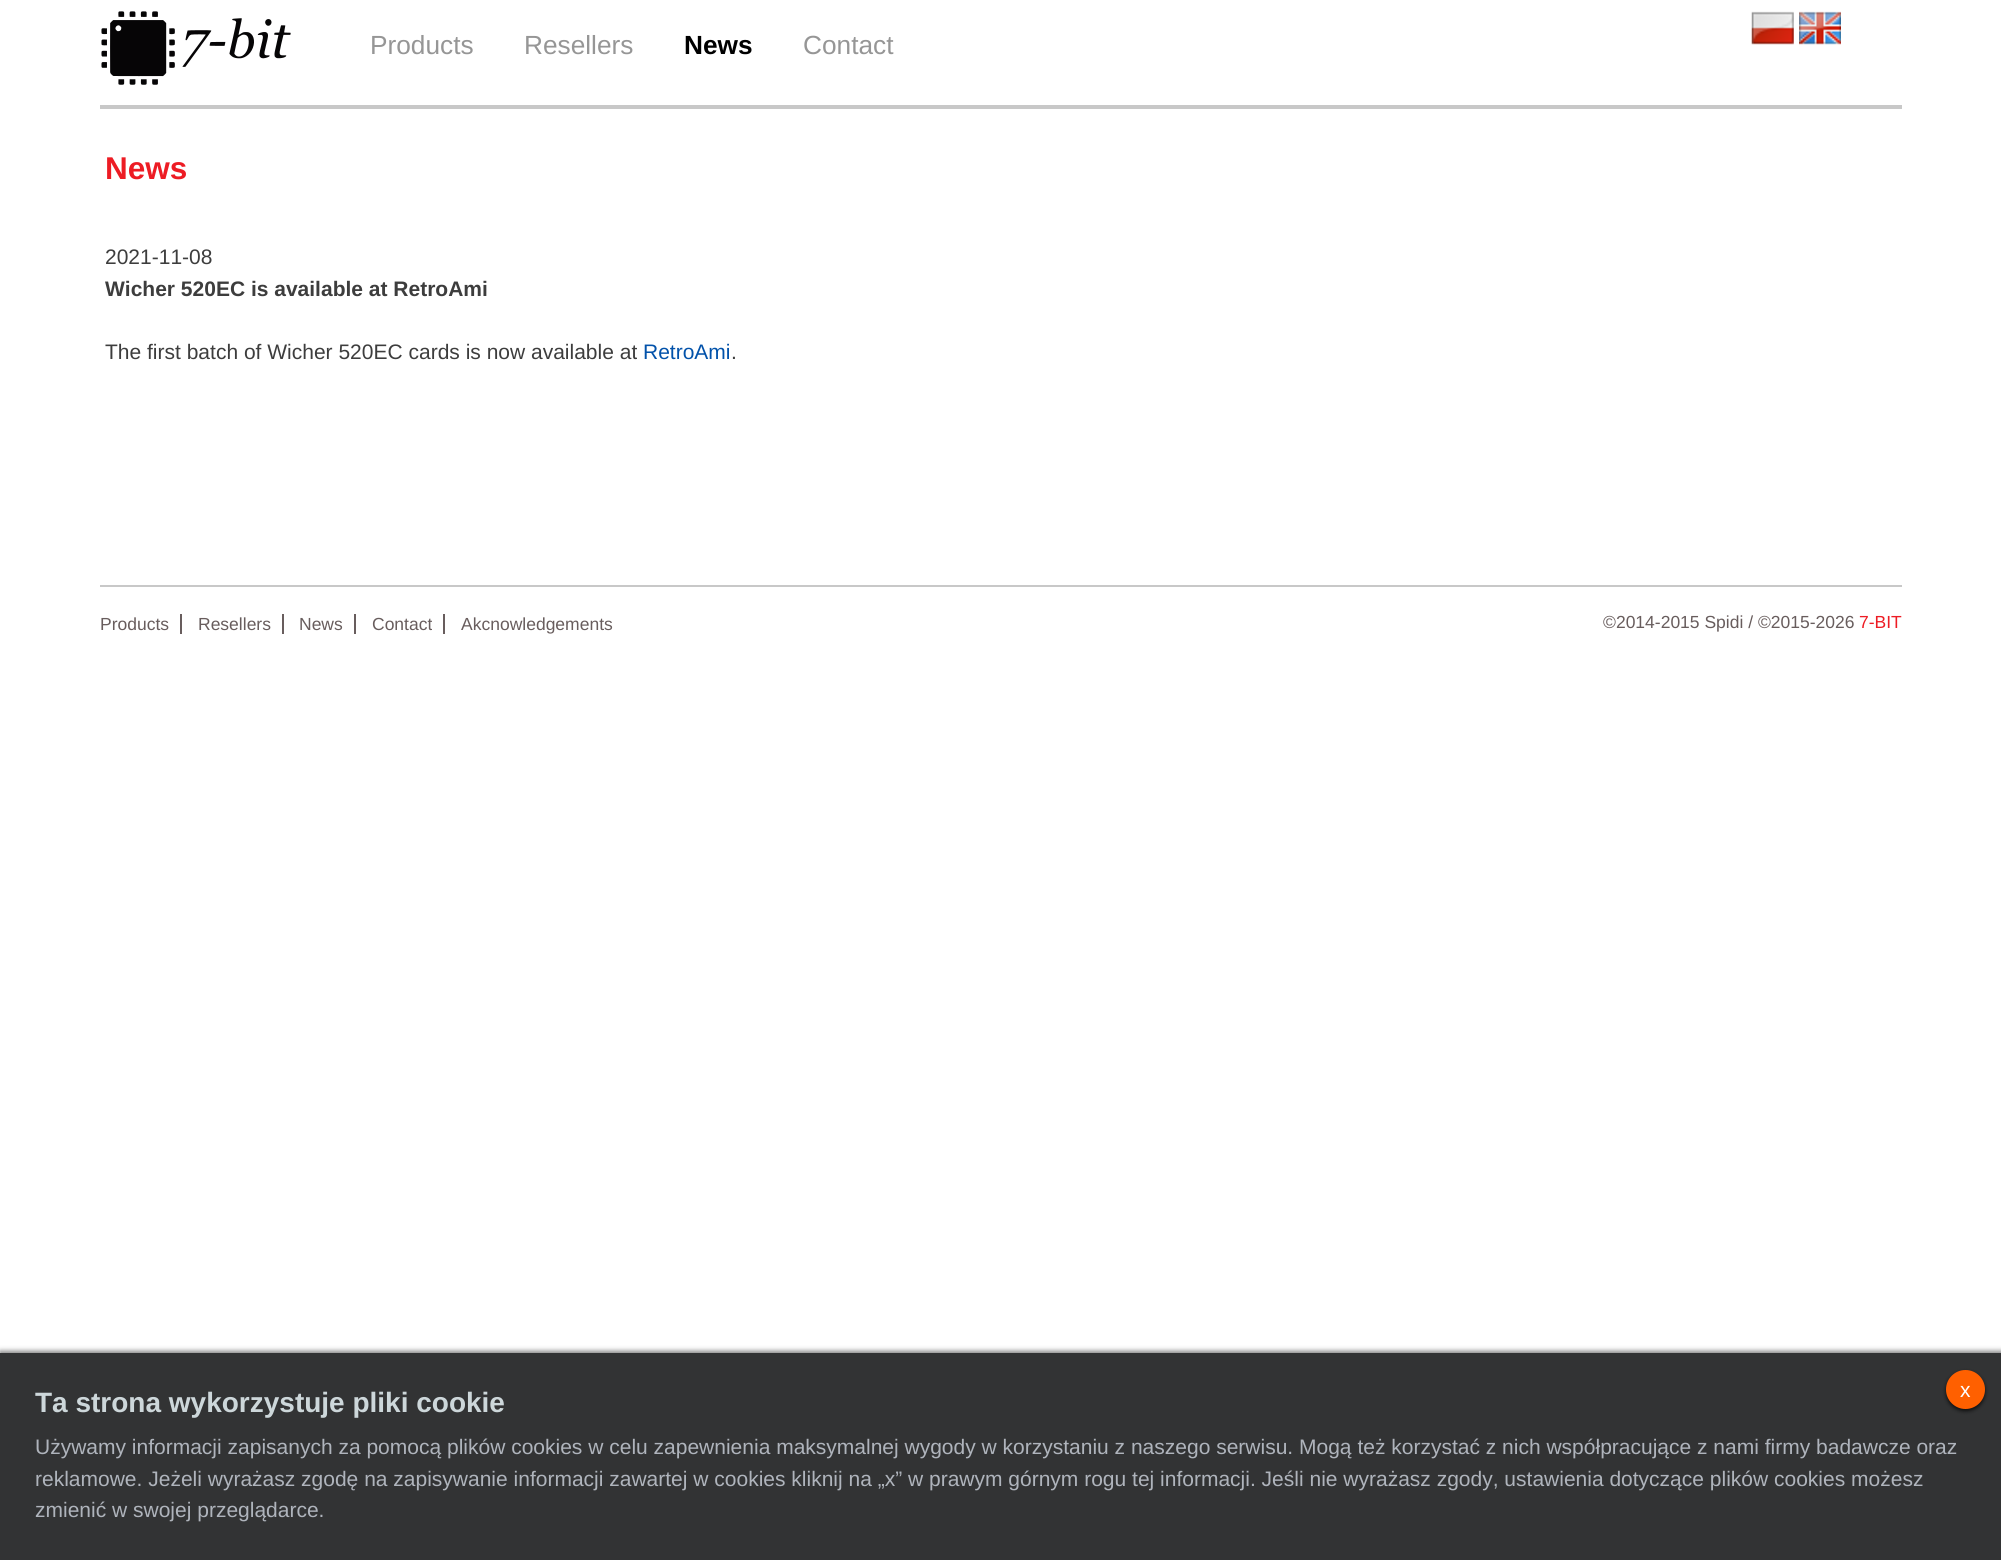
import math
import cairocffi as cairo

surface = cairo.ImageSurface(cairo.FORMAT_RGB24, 2001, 1560)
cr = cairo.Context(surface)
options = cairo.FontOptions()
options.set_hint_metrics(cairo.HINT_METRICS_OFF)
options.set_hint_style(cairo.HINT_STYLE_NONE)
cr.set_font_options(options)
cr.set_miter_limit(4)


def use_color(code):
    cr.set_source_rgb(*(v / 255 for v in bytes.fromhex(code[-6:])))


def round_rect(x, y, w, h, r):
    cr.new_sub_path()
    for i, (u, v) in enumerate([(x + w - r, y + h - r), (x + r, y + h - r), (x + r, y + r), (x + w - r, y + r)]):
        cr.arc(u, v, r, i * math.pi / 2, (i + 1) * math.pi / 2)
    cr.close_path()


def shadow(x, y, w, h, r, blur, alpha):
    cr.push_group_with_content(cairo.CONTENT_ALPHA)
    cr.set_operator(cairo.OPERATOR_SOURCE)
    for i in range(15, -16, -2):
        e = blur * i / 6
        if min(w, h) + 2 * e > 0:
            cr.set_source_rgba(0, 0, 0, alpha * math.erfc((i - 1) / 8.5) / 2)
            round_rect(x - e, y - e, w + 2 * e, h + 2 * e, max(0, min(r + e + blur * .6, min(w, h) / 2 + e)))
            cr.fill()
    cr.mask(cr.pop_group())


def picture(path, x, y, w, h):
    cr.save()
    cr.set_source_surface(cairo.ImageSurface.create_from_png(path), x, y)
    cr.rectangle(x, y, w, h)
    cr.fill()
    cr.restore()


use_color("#ffffff")
cr.paint()
use_color("#c8c8c8")
cr.rectangle(100, 105, 1802, 4)
cr.fill()
picture("img1.png", 101, 11, 190, 74)
cr.select_font_face("Liberation Sans")
cr.set_font_size(26.25)
use_color("#969696")
cr.move_to(370, 54)
cr.show_text("Products")
cr.move_to(524, 54)
cr.show_text("Resellers")
cr.select_font_face("Liberation Sans", cairo.FONT_SLANT_NORMAL, cairo.FONT_WEIGHT_BOLD)
use_color("#000000")
cr.move_to(684, 54)
cr.show_text("News")
cr.select_font_face("Liberation Sans")
use_color("#969696")
cr.move_to(803, 54)
cr.show_text("Contact")
picture("img2.png", 1751, 11, 43, 34)
picture("img3.png", 1799, 11, 42, 34)
cr.select_font_face("Liberation Sans", cairo.FONT_SLANT_NORMAL, cairo.FONT_WEIGHT_BOLD)
cr.set_font_size(31.5)
use_color("#ed1c24")
cr.move_to(105, 179)
cr.show_text("News")
cr.select_font_face("Liberation Sans")
cr.set_font_size(21)
use_color("#3d3d3d")
cr.move_to(105, 264)
cr.show_text("2021-11-08")
cr.select_font_face("Liberation Sans", cairo.FONT_SLANT_NORMAL, cairo.FONT_WEIGHT_BOLD)
cr.move_to(105, 296)
cr.show_text("Wicher 520EC is available at RetroAmi")
cr.select_font_face("Liberation Sans")
cr.move_to(105, 359)
cr.show_text("The first batch of Wicher 520EC cards is now available at")
use_color("#0252aa")
cr.move_to(643, 359)
cr.show_text("RetroAmi")
use_color("#3d3d3d")
cr.move_to(731, 359)
cr.show_text(".")
use_color("#c8c8c8")
cr.rectangle(100, 585, 1802, 2)
cr.fill()
cr.set_font_size(17.5)
use_color("#685d5d")
cr.move_to(100, 630)
cr.show_text("Products")
cr.rectangle(180, 614, 2, 20)
cr.fill()
cr.move_to(198, 630)
cr.show_text("Resellers")
cr.rectangle(282, 614, 2, 20)
cr.fill()
cr.move_to(299, 630)
cr.show_text("News")
cr.rectangle(354, 614, 2, 20)
cr.fill()
cr.move_to(372, 630)
cr.show_text("Contact")
cr.rectangle(443, 614, 2, 20)
cr.fill()
cr.move_to(461, 630)
cr.show_text("Akcnowledgements")
cr.move_to(1603, 628)
cr.show_text("©2014-2015 Spidi / ©2015-2026")
use_color("#ed1c24")
cr.move_to(1859, 628)
cr.show_text("7-BIT")
use_color("#000000")
shadow(0, 1351, 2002, 208, 0, 2.5, 0.5)
use_color("#323334")
cr.rectangle(0, 1353, 2001, 207)
cr.fill()
cr.select_font_face("Liberation Sans", cairo.FONT_SLANT_NORMAL, cairo.FONT_WEIGHT_BOLD)
cr.set_font_size(28)
use_color("#cdd7da")
cr.move_to(35, 1412)
cr.show_text("Ta strona wykorzystuje pliki cookie")
use_color("#000000")
shadow(1946, 1372, 39, 39, 19.5, 2, 0.75)
use_color("#ff6000")
cr.arc(1965.5, 1389.5, 19.5, 0, 2 * math.pi)
cr.fill()
cr.select_font_face("Liberation Sans")
cr.set_font_size(21)
use_color("#ffffff")
cr.move_to(1960, 1397)
cr.show_text("x")
use_color("#afb4bc")
cr.move_to(35, 1454)
cr.show_text("Używamy informacji zapisanych za pomocą plików cookies w celu zapewnienia maksymalnej wygody w korzystaniu z naszego serwisu. Mogą też korzystać z nich współpracujące z nami firmy badawcze oraz")
cr.move_to(35, 1486)
cr.show_text("reklamowe. Jeżeli wyrażasz zgodę na zapisywanie informacji zawartej w cookies kliknij na „x” w prawym górnym rogu tej informacji. Jeśli nie wyrażasz zgody, ustawienia dotyczące plików cookies możesz")
cr.move_to(35, 1517)
cr.show_text("zmienić w swojej przeglądarce.")
surface.write_to_png("result.png")
